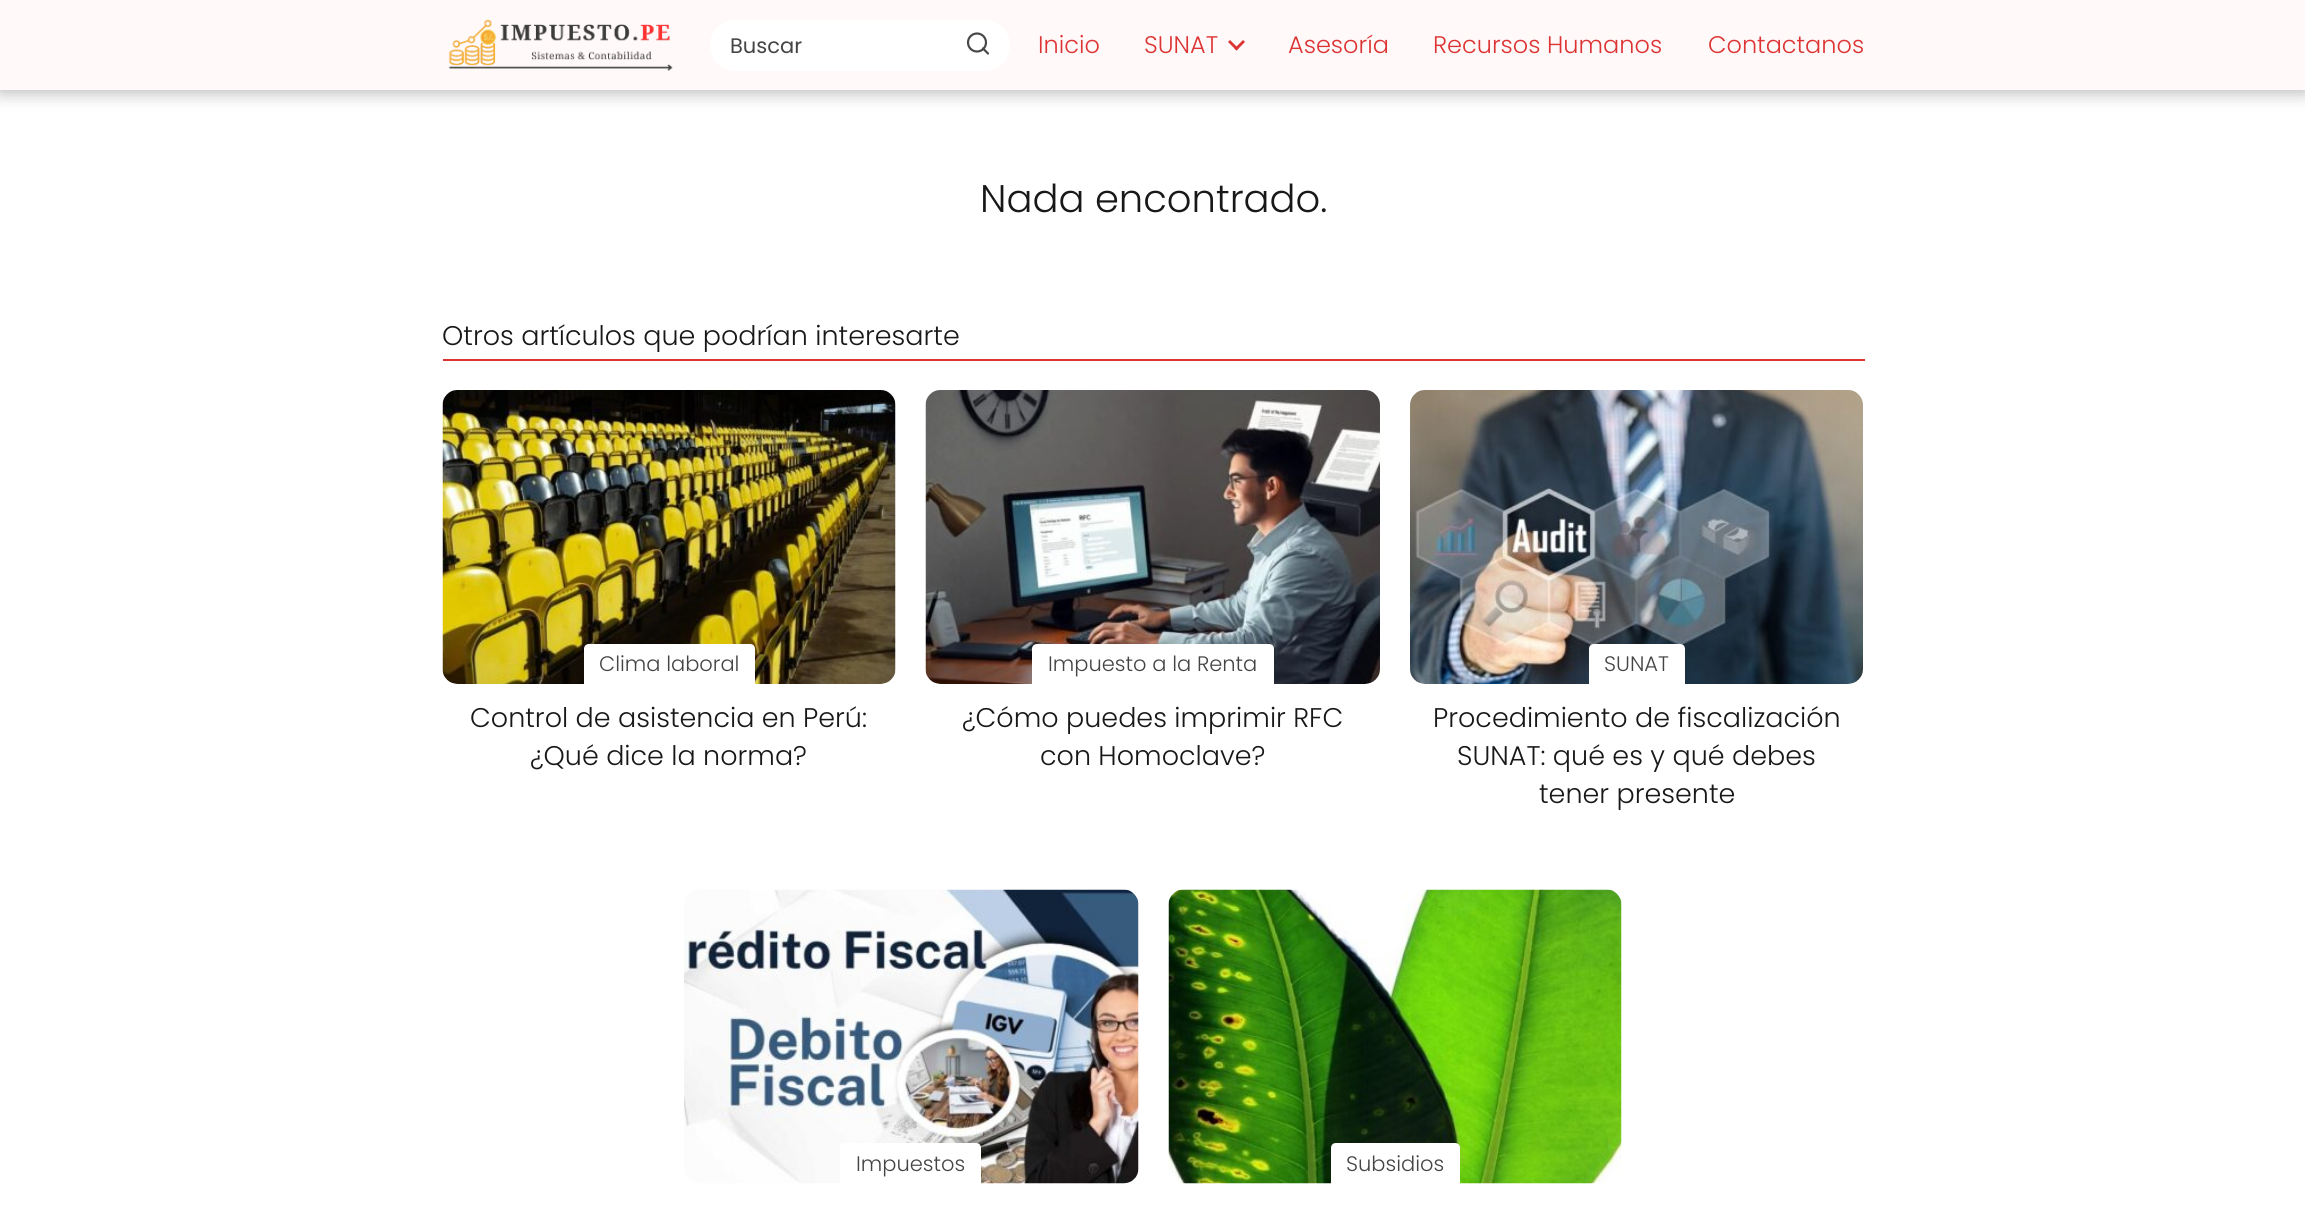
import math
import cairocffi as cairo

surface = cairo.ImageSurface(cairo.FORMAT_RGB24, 2305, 1217)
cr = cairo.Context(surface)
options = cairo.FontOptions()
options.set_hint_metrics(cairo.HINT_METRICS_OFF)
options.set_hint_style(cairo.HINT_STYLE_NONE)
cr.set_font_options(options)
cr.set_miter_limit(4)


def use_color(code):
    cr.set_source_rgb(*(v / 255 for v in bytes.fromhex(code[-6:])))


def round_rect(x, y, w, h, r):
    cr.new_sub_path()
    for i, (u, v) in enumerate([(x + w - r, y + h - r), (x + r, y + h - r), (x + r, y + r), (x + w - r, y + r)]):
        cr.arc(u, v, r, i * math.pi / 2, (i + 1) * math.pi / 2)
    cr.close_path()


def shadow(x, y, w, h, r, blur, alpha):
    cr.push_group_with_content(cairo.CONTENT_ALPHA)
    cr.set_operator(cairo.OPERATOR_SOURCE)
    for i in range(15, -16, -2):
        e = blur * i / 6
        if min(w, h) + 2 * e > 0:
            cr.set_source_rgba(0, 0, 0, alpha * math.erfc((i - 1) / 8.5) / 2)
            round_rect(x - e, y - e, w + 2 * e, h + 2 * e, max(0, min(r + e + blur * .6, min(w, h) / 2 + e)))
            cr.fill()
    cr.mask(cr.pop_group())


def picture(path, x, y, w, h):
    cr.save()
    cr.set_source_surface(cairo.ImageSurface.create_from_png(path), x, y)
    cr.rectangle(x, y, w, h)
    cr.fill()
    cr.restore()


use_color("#ffffff")
cr.paint()
use_color("#000000")
shadow(0, 2, 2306, 90, 0, 9, 0.3)
use_color("#fff9f9")
cr.rectangle(0, 0, 2305, 90)
cr.fill()
picture("img1.png", 448, 19, 225, 52)
use_color("#ffffff")
round_rect(710, 20, 300, 51, 25.5)
cr.fill()
cr.select_font_face("Poppins")
cr.set_font_size(21)
use_color("#444444")
cr.move_to(730, 53)
cr.show_text("Buscar")
cr.new_path()
cr.arc(977, 42.5, 9, 0, 2 * math.pi)
use_color("#484848")
cr.set_line_width(2.2)
cr.stroke()
cr.new_path()
cr.move_to(988, 53.5)
cr.line_to(983, 48.5)
cr.set_line_cap(cairo.LINE_CAP_ROUND)
cr.set_line_join(cairo.LINE_JOIN_ROUND)
cr.stroke()
cr.select_font_face("Poppins Light")
cr.set_font_size(24)
use_color("#dd3333")
cr.move_to(1038, 53)
cr.show_text("Inicio")
cr.move_to(1144, 53)
cr.show_text("SUNAT")
cr.new_path()
cr.move_to(1243, 40)
cr.line_to(1245, 42)
cr.line_to(1236.5, 50.5)
cr.line_to(1234.5, 48.5)
cr.close_path()
cr.fill()
cr.new_path()
cr.move_to(1230, 40)
cr.line_to(1238.5, 48.5)
cr.line_to(1236.5, 50.5)
cr.line_to(1228, 42)
cr.close_path()
cr.fill()
cr.move_to(1288, 53)
cr.show_text("Asesoría")
cr.move_to(1433, 53)
cr.show_text("Recursos Humanos")
cr.move_to(1708, 53)
cr.show_text("Contactanos")
cr.set_font_size(38.5)
use_color("#181818")
cr.move_to(980, 212)
cr.show_text("Nada encontrado.")
use_color("#dd3333")
cr.rectangle(443, 359, 1422, 2)
cr.fill()
cr.set_font_size(27)
use_color("#181818")
cr.move_to(442, 345)
cr.show_text("Otros artículos que podrían interesarte")
picture("img2.png", 442, 390, 454, 294)
use_color("#ffffff")
cr.new_path()
cr.move_to(589, 644)
cr.line_to(750, 644)
cr.curve_to(753, 644, 755, 646, 755, 649)
cr.line_to(755, 684)
cr.line_to(584, 684)
cr.line_to(584, 649)
cr.curve_to(584, 646, 586, 644, 589, 644)
cr.close_path()
cr.fill()
cr.set_font_size(21)
use_color("#444444")
cr.move_to(599, 671)
cr.show_text("Clima laboral")
cr.set_font_size(27)
use_color("#181818")
cr.move_to(470, 727)
cr.show_text("Control de asistencia en Perú:")
cr.move_to(530, 765)
cr.show_text("¿Qué dice la norma?")
picture("img3.png", 925, 390, 455, 294)
use_color("#ffffff")
cr.new_path()
cr.move_to(1037, 644)
cr.line_to(1269, 644)
cr.curve_to(1272, 644, 1274, 646, 1274, 649)
cr.line_to(1274, 684)
cr.line_to(1032, 684)
cr.line_to(1032, 649)
cr.curve_to(1032, 646, 1034, 644, 1037, 644)
cr.close_path()
cr.fill()
cr.set_font_size(21)
use_color("#444444")
cr.move_to(1048, 671)
cr.show_text("Impuesto a la Renta")
cr.set_font_size(27)
use_color("#181818")
cr.move_to(962, 727)
cr.show_text("¿Cómo puedes imprimir RFC")
cr.move_to(1040, 765)
cr.show_text("con Homoclave?")
picture("img4.png", 1410, 390, 453, 294)
use_color("#ffffff")
cr.new_path()
cr.move_to(1594, 644)
cr.line_to(1680, 644)
cr.curve_to(1683, 644, 1685, 646, 1685, 649)
cr.line_to(1685, 684)
cr.line_to(1589, 684)
cr.line_to(1589, 649)
cr.curve_to(1589, 646, 1591, 644, 1594, 644)
cr.close_path()
cr.fill()
cr.set_font_size(21)
use_color("#444444")
cr.move_to(1604, 671)
cr.show_text("SUNAT")
cr.set_font_size(27)
use_color("#181818")
cr.move_to(1433, 727)
cr.show_text("Procedimiento de fiscalización")
cr.move_to(1457, 765)
cr.show_text("SUNAT: qué es y qué debes")
cr.move_to(1539, 803)
cr.show_text("tener presente")
picture("img5.png", 684, 889, 455, 295)
use_color("#ffffff")
cr.new_path()
cr.move_to(845, 1143)
cr.line_to(976, 1143)
cr.curve_to(979, 1143, 981, 1145, 981, 1148)
cr.line_to(981, 1184)
cr.line_to(840, 1184)
cr.line_to(840, 1148)
cr.curve_to(840, 1145, 842, 1143, 845, 1143)
cr.close_path()
cr.fill()
cr.set_font_size(21)
use_color("#444444")
cr.move_to(856, 1171)
cr.show_text("Impuestos")
picture("img6.png", 1168, 889, 454, 295)
use_color("#ffffff")
cr.new_path()
cr.move_to(1336, 1143)
cr.line_to(1455, 1143)
cr.curve_to(1458, 1143, 1460, 1145, 1460, 1148)
cr.line_to(1460, 1184)
cr.line_to(1331, 1184)
cr.line_to(1331, 1148)
cr.curve_to(1331, 1145, 1333, 1143, 1336, 1143)
cr.close_path()
cr.fill()
use_color("#444444")
cr.move_to(1346, 1171)
cr.show_text("Subsidios")
surface.write_to_png("result.png")
